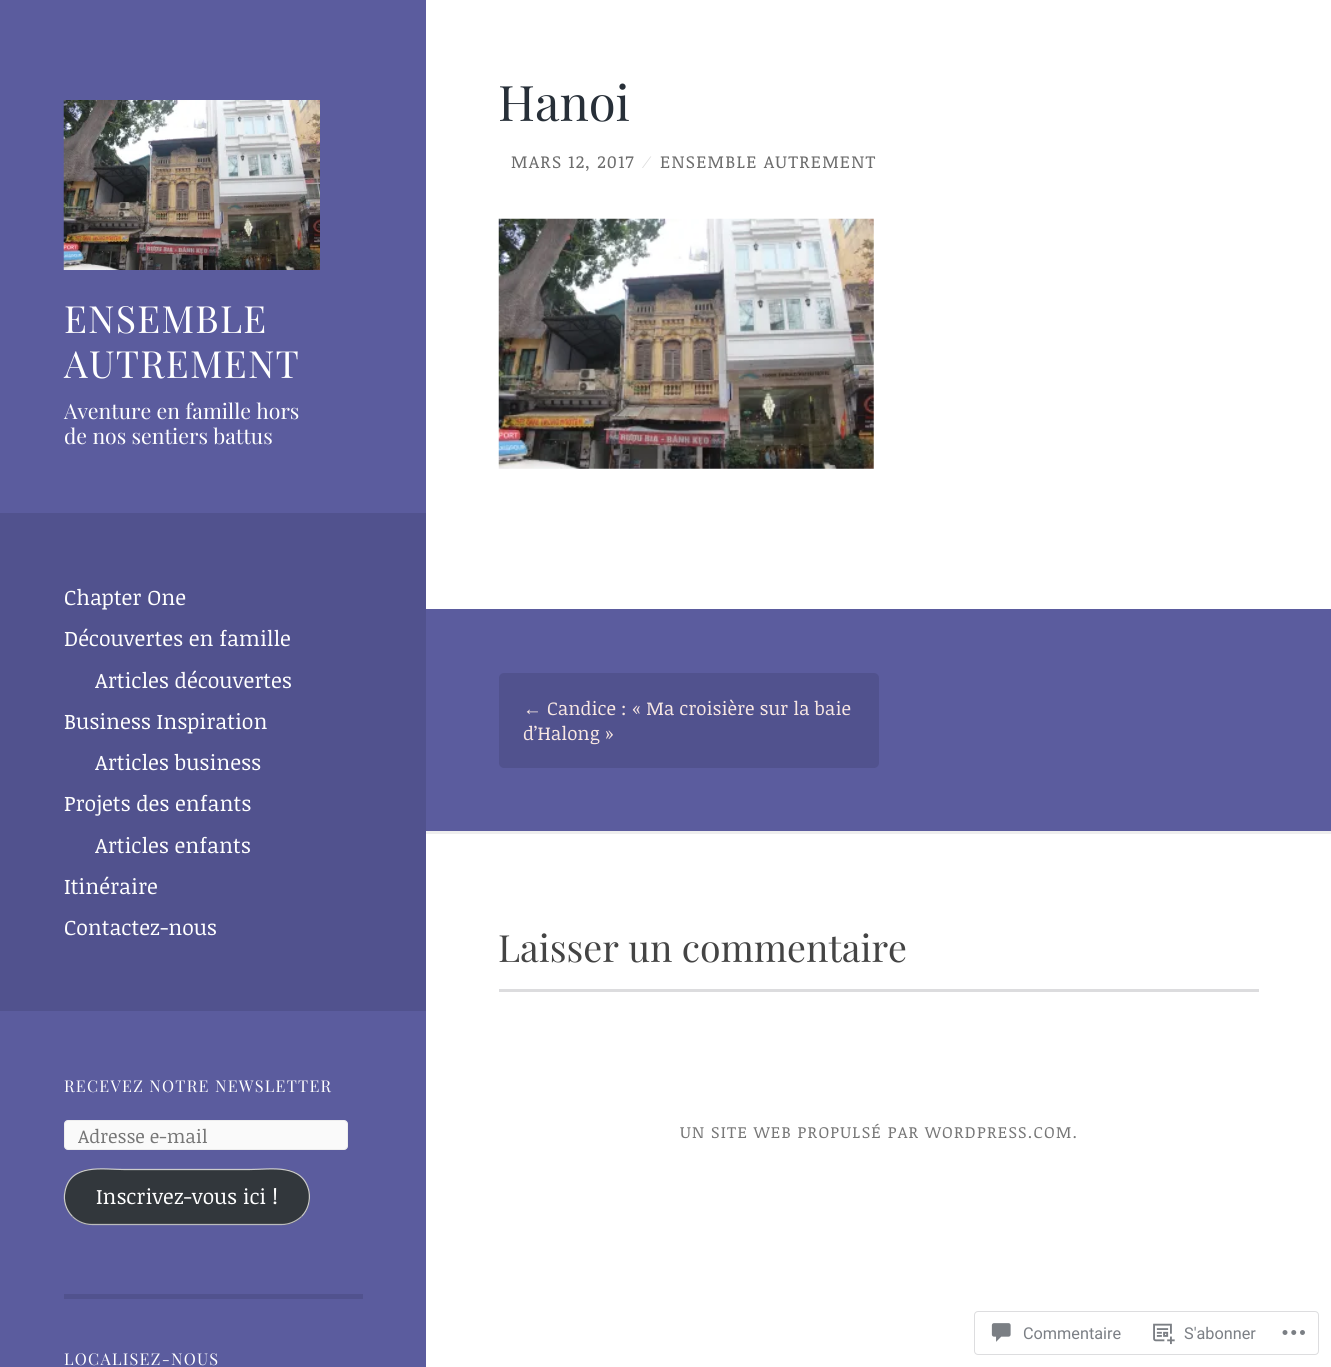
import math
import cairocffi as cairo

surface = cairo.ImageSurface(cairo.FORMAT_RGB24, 1331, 1367)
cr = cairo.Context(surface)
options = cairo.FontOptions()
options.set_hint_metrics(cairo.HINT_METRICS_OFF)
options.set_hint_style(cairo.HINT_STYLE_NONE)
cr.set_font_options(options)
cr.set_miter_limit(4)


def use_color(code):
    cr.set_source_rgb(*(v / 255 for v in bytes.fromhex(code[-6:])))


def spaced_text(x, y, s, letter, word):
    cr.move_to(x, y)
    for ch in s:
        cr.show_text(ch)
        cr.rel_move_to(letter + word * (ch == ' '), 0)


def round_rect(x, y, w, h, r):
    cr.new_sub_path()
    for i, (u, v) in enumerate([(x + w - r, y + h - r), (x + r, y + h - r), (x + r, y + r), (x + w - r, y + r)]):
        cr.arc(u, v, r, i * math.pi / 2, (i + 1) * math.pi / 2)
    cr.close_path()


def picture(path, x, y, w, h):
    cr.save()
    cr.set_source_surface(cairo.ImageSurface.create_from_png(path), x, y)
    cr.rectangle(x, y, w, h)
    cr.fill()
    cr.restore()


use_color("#5b5c9e")
cr.paint()
use_color("#ffffff")
cr.rectangle(426, 0, 905, 1367)
cr.fill()
cr.select_font_face("Playfair Display")
cr.set_font_size(49)
use_color("#272f38")
cr.move_to(498, 121)
cr.show_text("Hanoi")
cr.select_font_face("Noticia Text")
cr.set_font_size(17.5)
use_color("#6d6d6d")
spaced_text(511, 168, "MARS 12, 2017", 1.25, 0)
use_color("#dddddd")
spaced_text(641, 168, "⁄", 1.25, 0)
use_color("#6d6d6d")
spaced_text(660, 168, "ENSEMBLE AUTREMENT", 1.25, 0)
picture("img1.png", 498, 218, 376, 251)
use_color("#5b5c9e")
cr.rectangle(426, 609, 905, 222)
cr.fill()
use_color("#51528e")
round_rect(499, 673, 380, 95, 5)
cr.fill()
cr.select_font_face("Liberation Serif")
cr.set_font_size(18.75)
use_color("#f8e7e2")
cr.move_to(523, 715)
cr.show_text("←")
cr.select_font_face("Noticia Text")
cr.move_to(547, 715)
cr.show_text("Candice : « Ma croisière sur la baie")
cr.move_to(523, 740)
cr.show_text("d’Halong »")
use_color("#eeeeee")
cr.rectangle(426, 831, 905, 3)
cr.fill()
cr.select_font_face("Playfair Display")
cr.set_font_size(37.5)
use_color("#444444")
cr.move_to(498, 962)
cr.show_text("Laisser un commentaire")
use_color("#dcdcde")
cr.rectangle(499, 989, 760, 3)
cr.fill()
use_color("#51528e")
cr.rectangle(64, 1294, 299, 5)
cr.fill()
cr.set_font_size(16.25)
use_color("#ffffff")
spaced_text(64, 1092, "RECEVEZ NOTRE NEWSLETTER", 1.25, 0)
use_color("#fafafa")
round_rect(64.5, 1120.5, 283, 29, 3.5)
cr.fill_preserve()
use_color("#eeeeee")
cr.set_line_width(1)
cr.stroke()
cr.select_font_face("Noticia Text")
cr.set_font_size(18.75)
use_color("#777777")
cr.move_to(78, 1143)
cr.show_text("Adresse e-mail")
use_color("#32373c")
round_rect(64, 1169, 246, 56, 28)
cr.fill()
cr.new_path()
cr.move_to(301.5, 1216.5)
cr.curve_to(296, 1221.5, 289, 1224.5, 282, 1224.5)
cr.line_to(92, 1224.5)
cr.curve_to(84.5, 1224.5, 77.5, 1221.5, 72.5, 1216.5)
use_color("#bbbbbb")
cr.set_line_width(1.2)
cr.stroke()
cr.new_path()
cr.move_to(72.5, 1216.5)
cr.curve_to(66, 1210, 63, 1200.5, 65, 1191.5)
cr.curve_to(70.5, 1163, 103, 1169.5, 123.5, 1169.5)
cr.line_to(250, 1169.5)
cr.curve_to(271, 1169.5, 303, 1163, 309, 1191.5)
cr.curve_to(310.5, 1200.5, 308, 1210, 301.5, 1216.5)
use_color("#cccccc")
cr.stroke()
cr.set_font_size(21)
use_color("#ffffff")
cr.move_to(96, 1204)
cr.show_text("Inscrivez-vous ici !")
cr.select_font_face("Playfair Display")
cr.set_font_size(16.25)
spaced_text(64, 1365, "LOCALISEZ-NOUS", 1.25, 0)
picture("img2.png", 63, 100, 257, 170)
cr.set_font_size(37.5)
spaced_text(64, 333, "ENSEMBLE", 1.25, 0)
spaced_text(64, 378, "AUTREMENT", 1.25, 0)
cr.set_font_size(21.25)
cr.move_to(64, 419)
cr.show_text("Aventure en famille hors")
cr.move_to(64, 444)
cr.show_text("de nos sentiers battus")
use_color("#51528e")
cr.rectangle(0, 513, 426, 498)
cr.fill()
cr.select_font_face("Noticia Text")
use_color("#ffffff")
cr.move_to(64, 605)
cr.show_text("Chapter One")
cr.move_to(64, 646)
cr.show_text("Découvertes en famille")
cr.move_to(95, 688)
cr.show_text("Articles découvertes")
cr.move_to(64, 729)
cr.show_text("Business Inspiration")
cr.move_to(95, 770)
cr.show_text("Articles business")
cr.move_to(64, 811)
cr.show_text("Projets des enfants")
cr.move_to(95, 853)
cr.show_text("Articles enfants")
cr.move_to(64, 894)
cr.show_text("Itinéraire")
cr.move_to(64, 935)
cr.show_text("Contactez-nous")
cr.set_font_size(16.25)
use_color("#777777")
spaced_text(680, 1138, "UN SITE WEB PROPULSÉ PAR WORDPRESS.COM.", 1.25, 0)
round_rect(974.5, 1311.5, 344, 43, 3.5)
use_color("#dddddf")
cr.set_line_width(1)
cr.stroke()
picture("img3.png", 991, 1323, 20, 19)
cr.select_font_face("Roboto")
use_color("#7b7f85")
cr.move_to(1023, 1339)
cr.show_text("Commentaire")
picture("img4.png", 1153, 1323, 22, 22)
cr.move_to(1184, 1339)
cr.show_text("S'abonner")
picture("img5.png", 1282, 1330, 23, 5)
surface.write_to_png("result.png")
